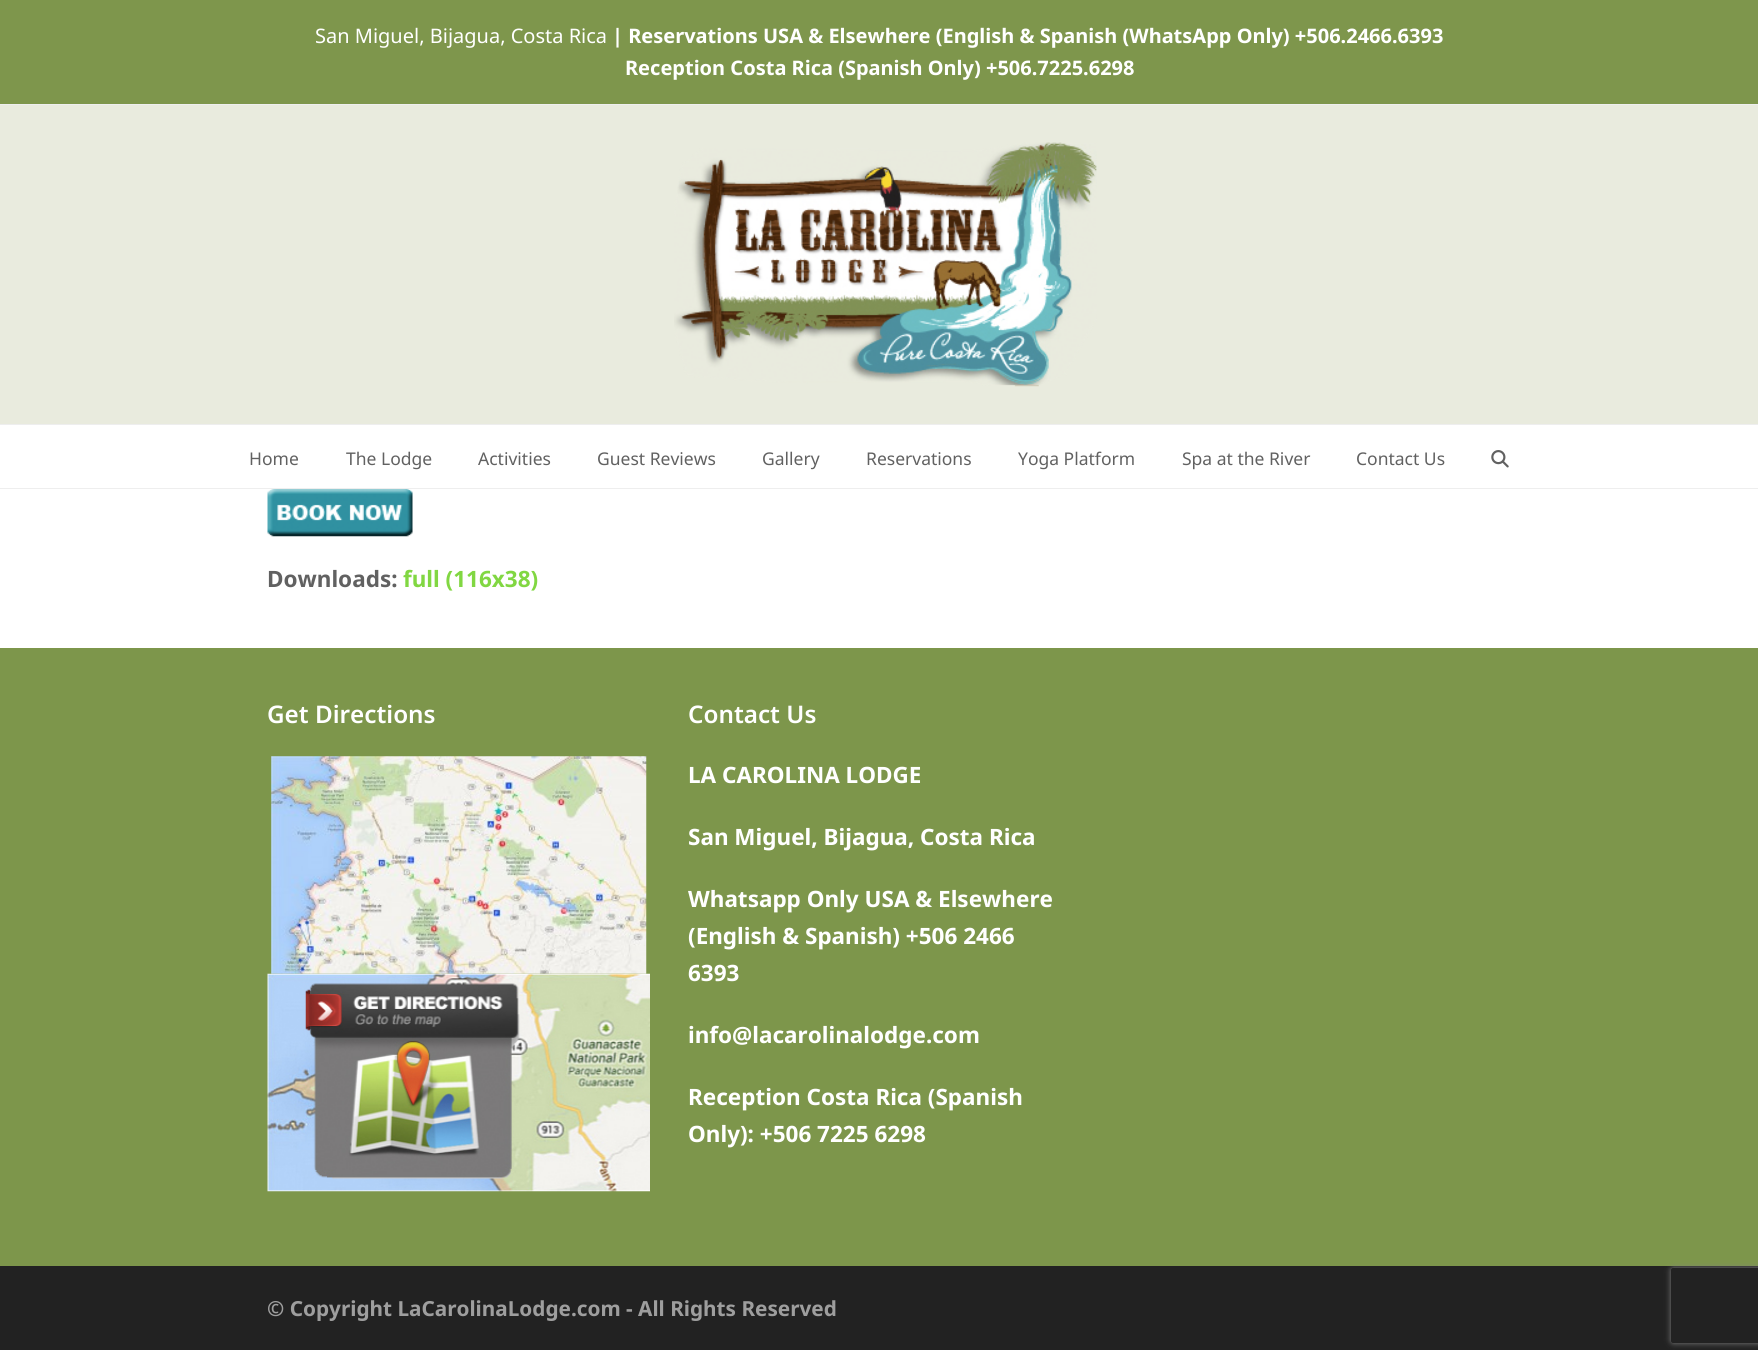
import math
import cairocffi as cairo

surface = cairo.ImageSurface(cairo.FORMAT_RGB24, 1758, 1360)
cr = cairo.Context(surface)
options = cairo.FontOptions()
options.set_hint_metrics(cairo.HINT_METRICS_OFF)
options.set_hint_style(cairo.HINT_STYLE_NONE)
cr.set_font_options(options)
cr.set_miter_limit(4)


def use_color(code):
    cr.set_source_rgb(*(v / 255 for v in bytes.fromhex(code[-6:])))


def round_rect(x, y, w, h, r):
    cr.new_sub_path()
    for i, (u, v) in enumerate([(x + w - r, y + h - r), (x + r, y + h - r), (x + r, y + r), (x + w - r, y + r)]):
        cr.arc(u, v, r, i * math.pi / 2, (i + 1) * math.pi / 2)
    cr.close_path()


def shadow(x, y, w, h, r, blur, alpha):
    cr.push_group_with_content(cairo.CONTENT_ALPHA)
    cr.set_operator(cairo.OPERATOR_SOURCE)
    for i in range(15, -16, -2):
        e = blur * i / 6
        if min(w, h) + 2 * e > 0:
            cr.set_source_rgba(0, 0, 0, alpha * math.erfc((i - 1) / 8.5) / 2)
            round_rect(x - e, y - e, w + 2 * e, h + 2 * e, max(0, min(r + e + blur * .6, min(w, h) / 2 + e)))
            cr.fill()
    cr.mask(cr.pop_group())


def picture(path, x, y, w, h):
    cr.save()
    cr.set_source_surface(cairo.ImageSurface.create_from_png(path), x, y)
    cr.rectangle(x, y, w, h)
    cr.fill()
    cr.restore()


use_color("#ffffff")
cr.paint()
use_color("#7e964c")
cr.rectangle(0, 0, 1758, 104)
cr.fill()
use_color("#eeeeee")
cr.rectangle(0, 104, 1758, 1)
cr.fill()
cr.select_font_face("Noto Sans")
cr.set_font_size(20)
use_color("#ffffff")
cr.move_to(315, 43)
cr.show_text("San Miguel, Bijagua, Costa Rica")
cr.select_font_face("Noto Sans", cairo.FONT_SLANT_NORMAL, cairo.FONT_WEIGHT_BOLD)
cr.move_to(612, 43)
cr.show_text("| Reservations USA & Elsewhere (English & Spanish (WhatsApp Only) +506.2466.6393")
cr.move_to(625, 75)
cr.show_text("Reception Costa Rica (Spanish Only) +506.7225.6298")
use_color("#e9ebde")
cr.rectangle(0, 105, 1758, 319)
cr.fill()
picture("img1.png", 674, 142, 423, 245)
use_color("#eeeeee")
cr.rectangle(0, 424, 1758, 1)
cr.fill()
cr.rectangle(0, 488, 1758, 1)
cr.fill()
cr.select_font_face("Noto Sans")
cr.set_font_size(17.5)
use_color("#616161")
cr.move_to(249, 465)
cr.show_text("Home")
cr.move_to(346, 465)
cr.show_text("The Lodge")
cr.move_to(478, 465)
cr.show_text("Activities")
cr.move_to(597, 465)
cr.show_text("Guest Reviews")
cr.move_to(762, 465)
cr.show_text("Gallery")
cr.move_to(866, 465)
cr.show_text("Reservations")
cr.move_to(1018, 465)
cr.show_text("Yoga Platform")
cr.move_to(1182, 465)
cr.show_text("Spa at the River")
cr.move_to(1356, 465)
cr.show_text("Contact Us")
picture("img2.png", 1491, 450, 18, 18)
picture("img3.png", 267, 489, 146, 48)
cr.select_font_face("Noto Sans", cairo.FONT_SLANT_NORMAL, cairo.FONT_WEIGHT_BOLD)
cr.set_font_size(22.5)
cr.move_to(267, 587)
cr.show_text("Downloads:")
use_color("#81d742")
cr.move_to(403, 587)
cr.show_text("full (116x38)")
use_color("#7d964b")
cr.rectangle(0, 648, 1758, 618)
cr.fill()
cr.select_font_face("Noto Sans SemiBold")
cr.set_font_size(24.25)
use_color("#ffffff")
cr.move_to(267, 723)
cr.show_text("Get Directions")
picture("img4.png", 271, 756, 376, 218)
picture("img5.png", 267, 973, 383, 219)
cr.move_to(688, 723)
cr.show_text("Contact Us")
cr.select_font_face("Noto Sans", cairo.FONT_SLANT_NORMAL, cairo.FONT_WEIGHT_BOLD)
cr.set_font_size(22.5)
cr.move_to(688, 783)
cr.show_text("LA CAROLINA LODGE")
cr.move_to(688, 845)
cr.show_text("San Miguel, Bijagua, Costa Rica")
cr.move_to(688, 907)
cr.show_text("Whatsapp Only USA & Elsewhere")
cr.move_to(688, 944)
cr.show_text("(English & Spanish) +506 2466")
cr.move_to(688, 981)
cr.show_text("6393")
cr.move_to(688, 1043)
cr.show_text("info@lacarolinalodge.com")
cr.move_to(688, 1105)
cr.show_text("Reception Costa Rica (Spanish")
cr.move_to(688, 1142)
cr.show_text("Only): +506 7225 6298")
use_color("#222222")
cr.rectangle(0, 1266, 1758, 84)
cr.fill()
cr.set_font_size(20.75)
use_color("#9e9e9e")
cr.move_to(267, 1316)
cr.show_text("© Copyright LaCarolinaLodge.com - All Rights Reserved")
cr.save()
cr.set_fill_rule(cairo.FILL_RULE_EVEN_ODD)
cr.new_path()
cr.move_to(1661, 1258)
cr.line_to(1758, 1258)
cr.line_to(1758, 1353)
cr.line_to(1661, 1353)
cr.close_path()
cr.move_to(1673.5, 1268)
cr.line_to(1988.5, 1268)
cr.curve_to(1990, 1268, 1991, 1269, 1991, 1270.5)
cr.line_to(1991, 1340.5)
cr.curve_to(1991, 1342, 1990, 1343, 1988.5, 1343)
cr.line_to(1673.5, 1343)
cr.curve_to(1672, 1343, 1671, 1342, 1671, 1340.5)
cr.line_to(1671, 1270.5)
cr.curve_to(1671, 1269, 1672, 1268, 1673.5, 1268)
cr.close_path()
cr.clip()
use_color("#808080")
shadow(1671, 1268, 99, 75, 2.5, 3, 1)
cr.restore()
surface.write_to_png("result.png")
